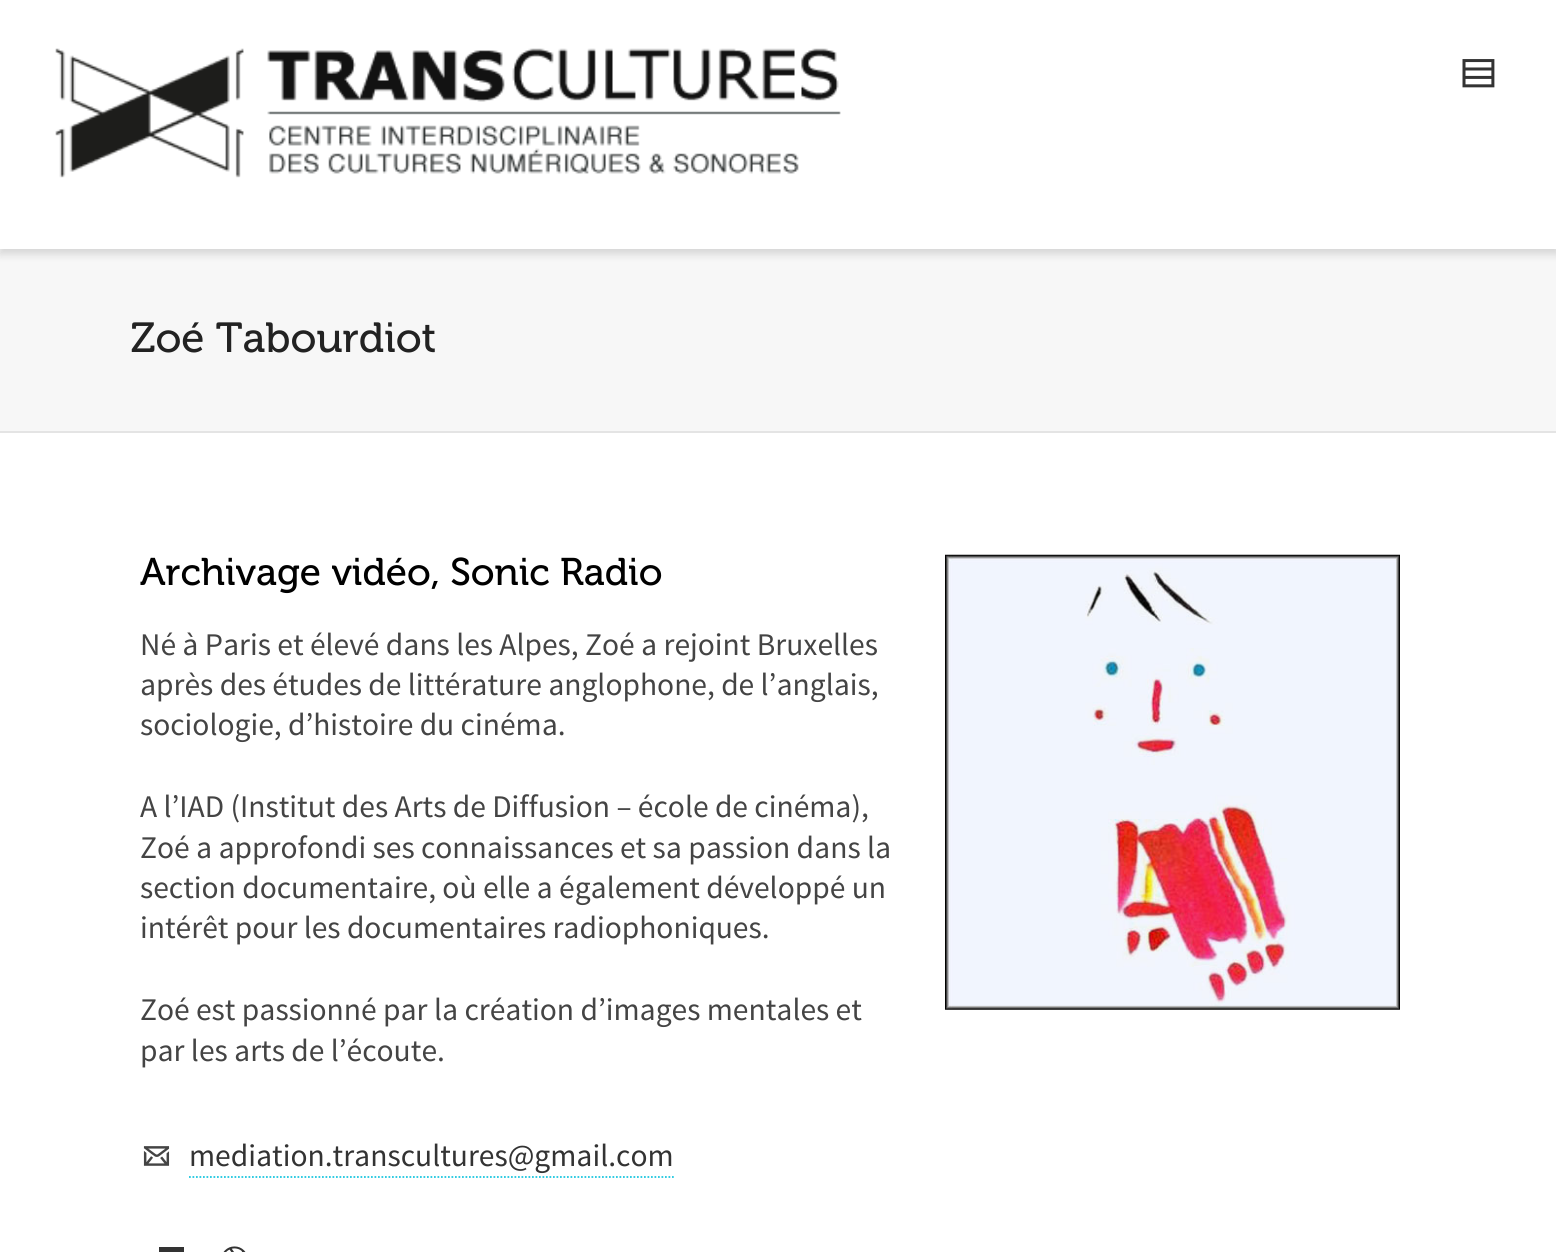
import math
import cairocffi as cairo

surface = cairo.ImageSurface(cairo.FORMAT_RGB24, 1556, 1252)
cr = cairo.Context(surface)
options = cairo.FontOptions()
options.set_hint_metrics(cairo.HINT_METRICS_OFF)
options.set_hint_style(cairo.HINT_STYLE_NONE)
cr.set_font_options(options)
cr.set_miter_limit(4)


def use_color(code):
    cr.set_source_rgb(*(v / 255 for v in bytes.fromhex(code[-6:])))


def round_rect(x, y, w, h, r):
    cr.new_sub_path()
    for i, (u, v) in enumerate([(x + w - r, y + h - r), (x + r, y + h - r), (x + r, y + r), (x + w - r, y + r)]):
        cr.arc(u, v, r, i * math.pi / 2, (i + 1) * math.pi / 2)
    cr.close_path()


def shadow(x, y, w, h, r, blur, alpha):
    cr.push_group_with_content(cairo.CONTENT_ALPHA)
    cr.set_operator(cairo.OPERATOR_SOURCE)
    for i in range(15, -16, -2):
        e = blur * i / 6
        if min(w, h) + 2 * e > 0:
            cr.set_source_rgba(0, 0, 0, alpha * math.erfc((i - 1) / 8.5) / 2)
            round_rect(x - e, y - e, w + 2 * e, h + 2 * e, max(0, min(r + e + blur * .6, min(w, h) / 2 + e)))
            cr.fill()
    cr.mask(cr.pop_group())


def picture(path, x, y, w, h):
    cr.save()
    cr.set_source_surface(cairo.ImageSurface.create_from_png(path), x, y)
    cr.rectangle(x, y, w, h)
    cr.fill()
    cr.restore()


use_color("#ffffff")
cr.paint()
use_color("#f7f7f7")
cr.rectangle(0, 249, 1556, 182)
cr.fill()
use_color("#000000")
shadow(0, 5, 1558, 249, 0, 4.5, 0.1)
shadow(0, 5, 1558, 249, 0, 4.5, 0.05)
use_color("#ffffff")
cr.rectangle(0, 0, 1556, 249)
cr.fill()
picture("img1.png", 55, 48, 786, 130)
picture("img2.png", 1462, 59, 33, 29)
use_color("#e4e4e4")
cr.rectangle(0, 431, 1556, 2)
cr.fill()
cr.select_font_face("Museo")
cr.set_font_size(42)
use_color("#222222")
cr.move_to(131, 352)
cr.show_text("Zoé Tabourdiot")
cr.set_font_size(38.5)
use_color("#000000")
cr.move_to(140, 585)
cr.show_text("Archivage vidéo, Sonic Radio")
cr.select_font_face("Source Sans Pro")
cr.set_font_size(31.5)
use_color("#444444")
cr.move_to(140, 655)
cr.show_text("Né à Paris et élevé dans les Alpes, Zoé a rejoint Bruxelles")
cr.move_to(140, 695)
cr.show_text("après des études de littérature anglophone, de l’anglais,")
cr.move_to(140, 735)
cr.show_text("sociologie, d’histoire du cinéma.")
cr.move_to(140, 817)
cr.show_text("A l’IAD (Institut des Arts de Diffusion – école de cinéma),")
cr.move_to(140, 858)
cr.show_text("Zoé a approfondi ses connaissances et sa passion dans la")
cr.move_to(140, 898)
cr.show_text("section documentaire, où elle a également développé un")
cr.move_to(140, 938)
cr.show_text("intérêt pour les documentaires radiophoniques.")
cr.move_to(140, 1020)
cr.show_text("Zoé est passionné par la création d’images mentales et")
cr.move_to(140, 1061)
cr.show_text("par les arts de l’écoute.")
picture("img3.png", 143, 1146, 27, 20)
use_color("#333333")
cr.move_to(189, 1166)
cr.show_text("mediation.transcultures@gmail.com")
cr.new_path()
cr.move_to(189, 1177)
cr.line_to(674, 1177)
use_color("#1dc6df")
cr.set_line_width(1.8)
cr.set_dash([1.75, 1.75])
cr.stroke()
use_color("#333333")
cr.rectangle(159, 1247, 25, 5)
cr.fill()
picture("img4.png", 223, 1246, 23, 6)
picture("img5.png", 945, 554, 455, 456)
surface.write_to_png("result.png")
